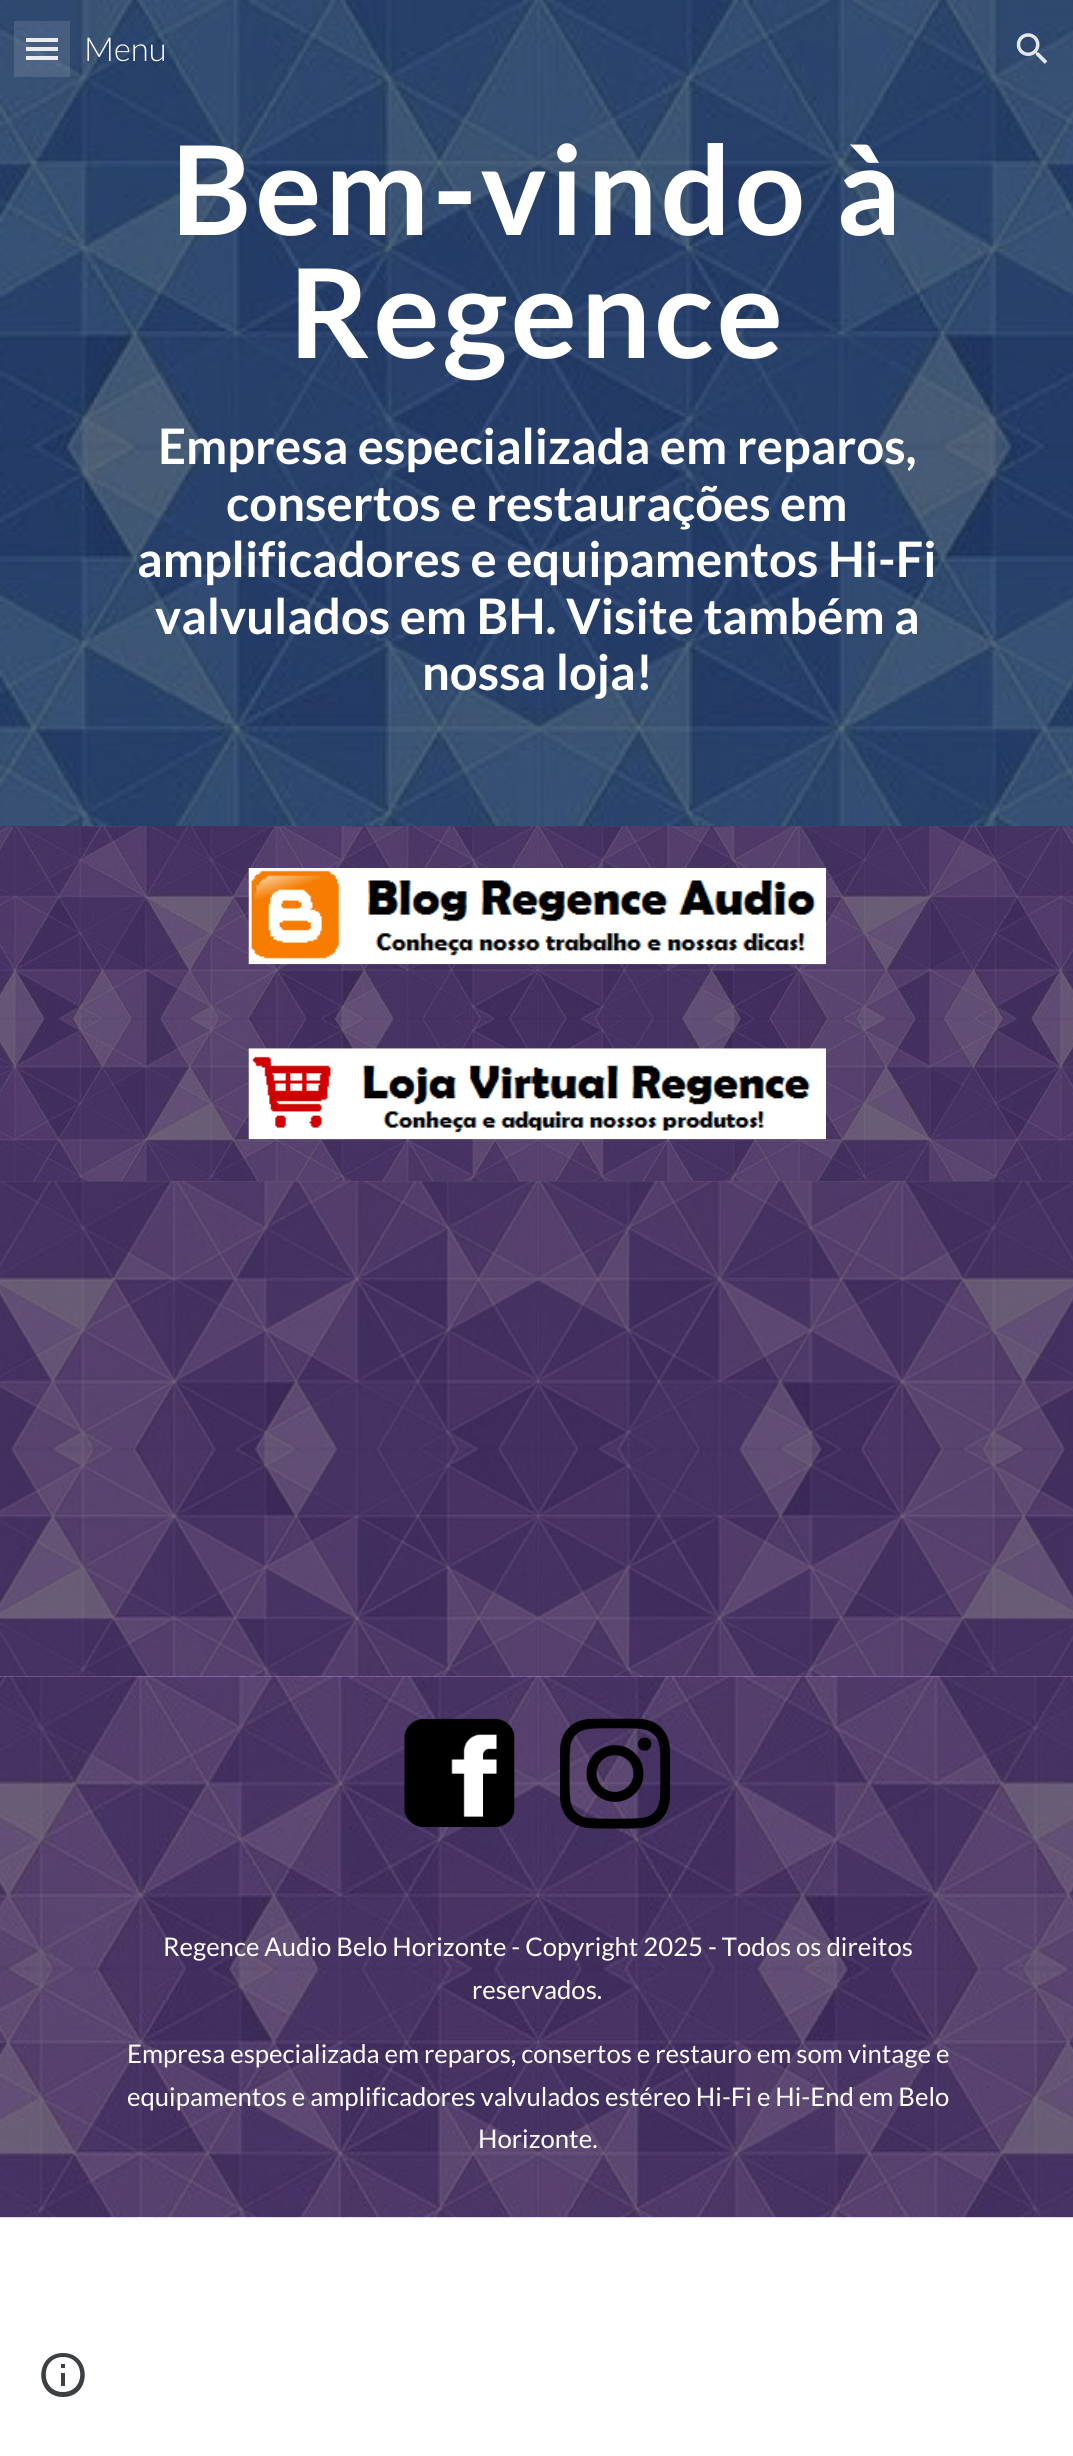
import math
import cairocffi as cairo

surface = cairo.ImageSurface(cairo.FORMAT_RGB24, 1073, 2456)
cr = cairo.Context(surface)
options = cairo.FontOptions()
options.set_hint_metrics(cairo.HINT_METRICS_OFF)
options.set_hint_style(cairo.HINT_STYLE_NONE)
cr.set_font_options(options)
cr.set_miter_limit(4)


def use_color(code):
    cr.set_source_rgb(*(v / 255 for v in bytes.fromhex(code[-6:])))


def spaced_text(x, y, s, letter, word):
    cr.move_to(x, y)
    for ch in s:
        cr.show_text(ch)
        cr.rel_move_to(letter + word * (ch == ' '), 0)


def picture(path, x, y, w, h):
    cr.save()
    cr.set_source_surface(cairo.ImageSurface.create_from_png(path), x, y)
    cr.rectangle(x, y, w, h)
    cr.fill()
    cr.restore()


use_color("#ffffff")
cr.paint()
picture("img2.png", 0, 0, 1073, 826)
cr.set_source_rgba(1, 1, 1, 0.88)
cr.rectangle(26, 38, 32, 4)
cr.fill()
cr.rectangle(26, 47, 32, 4)
cr.fill()
cr.rectangle(26, 56, 32, 4)
cr.fill()
cr.set_source_rgba(1, 1, 1, 0.12)
cr.rectangle(14, 21, 56, 56)
cr.fill()
cr.select_font_face("Lato Light")
cr.set_font_size(33)
use_color("#ffffff")
cr.move_to(84, 61)
cr.show_text("Menu")
picture("img1.png", 1016, 33, 32, 31)
cr.select_font_face("Lato", cairo.FONT_SLANT_NORMAL, cairo.FONT_WEIGHT_BOLD)
cr.set_font_size(123.75)
spaced_text(171, 235, "Bem-vindo à", 3.5, 0)
spaced_text(289, 358, "Regence", 3.5, 0)
cr.set_font_size(49)
cr.move_to(158, 464)
cr.show_text("Empresa especializada em reparos,")
cr.move_to(226, 521)
cr.show_text("consertos e restaurações em")
cr.move_to(137, 577)
cr.show_text("amplificadores e equipamentos Hi-Fi")
cr.move_to(155, 634)
cr.show_text("valvulados em BH. Visite também a")
cr.move_to(422, 690)
cr.show_text("nossa loja!")
picture("img3.png", 0, 826, 1073, 356)
picture("img4.png", 248, 868, 578, 97)
picture("img5.png", 248, 1048, 578, 92)
picture("img6.png", 0, 1181, 1073, 496)
cr.set_source_rgba(0.129, 0.129, 0.129, 0.6)
cr.rectangle(0, 1181, 1073, 496)
cr.fill()
picture("img7.png", 0, 1676, 1073, 542)
picture("img8.png", 404, 1718, 111, 109)
picture("img9.png", 560, 1718, 111, 111)
cr.select_font_face("Lato")
cr.set_font_size(25.7)
use_color("#ffffff")
cr.move_to(163, 1956)
cr.show_text("Regence Audio Belo Horizonte - Copyright 2025 - Todos os direitos")
cr.move_to(472, 1999)
cr.show_text("reservados.")
cr.move_to(127, 2063)
cr.show_text("Empresa especializada em reparos, consertos e restauro em som vintage e")
cr.move_to(127, 2106)
cr.show_text("equipamentos e amplificadores valvulados estéreo Hi-Fi e Hi-End em Belo")
cr.move_to(478, 2148)
cr.show_text("Horizonte.")
use_color("#3c4043")
cr.new_path()
cr.move_to(61, 2386)
cr.line_to(65, 2386)
cr.line_to(65, 2373)
cr.line_to(61, 2373)
cr.close_path()
cr.move_to(63, 2353)
cr.curve_to(34, 2353, 34, 2397, 63, 2397)
cr.curve_to(92, 2397, 92, 2353, 63, 2353)
cr.close_path()
cr.move_to(63, 2392)
cr.curve_to(40, 2392, 40, 2357, 63, 2357)
cr.curve_to(86, 2357, 86, 2392, 63, 2392)
cr.close_path()
cr.move_to(61, 2368)
cr.line_to(65, 2368)
cr.line_to(65, 2364)
cr.line_to(61, 2364)
cr.close_path()
cr.fill()
surface.write_to_png("result.png")
